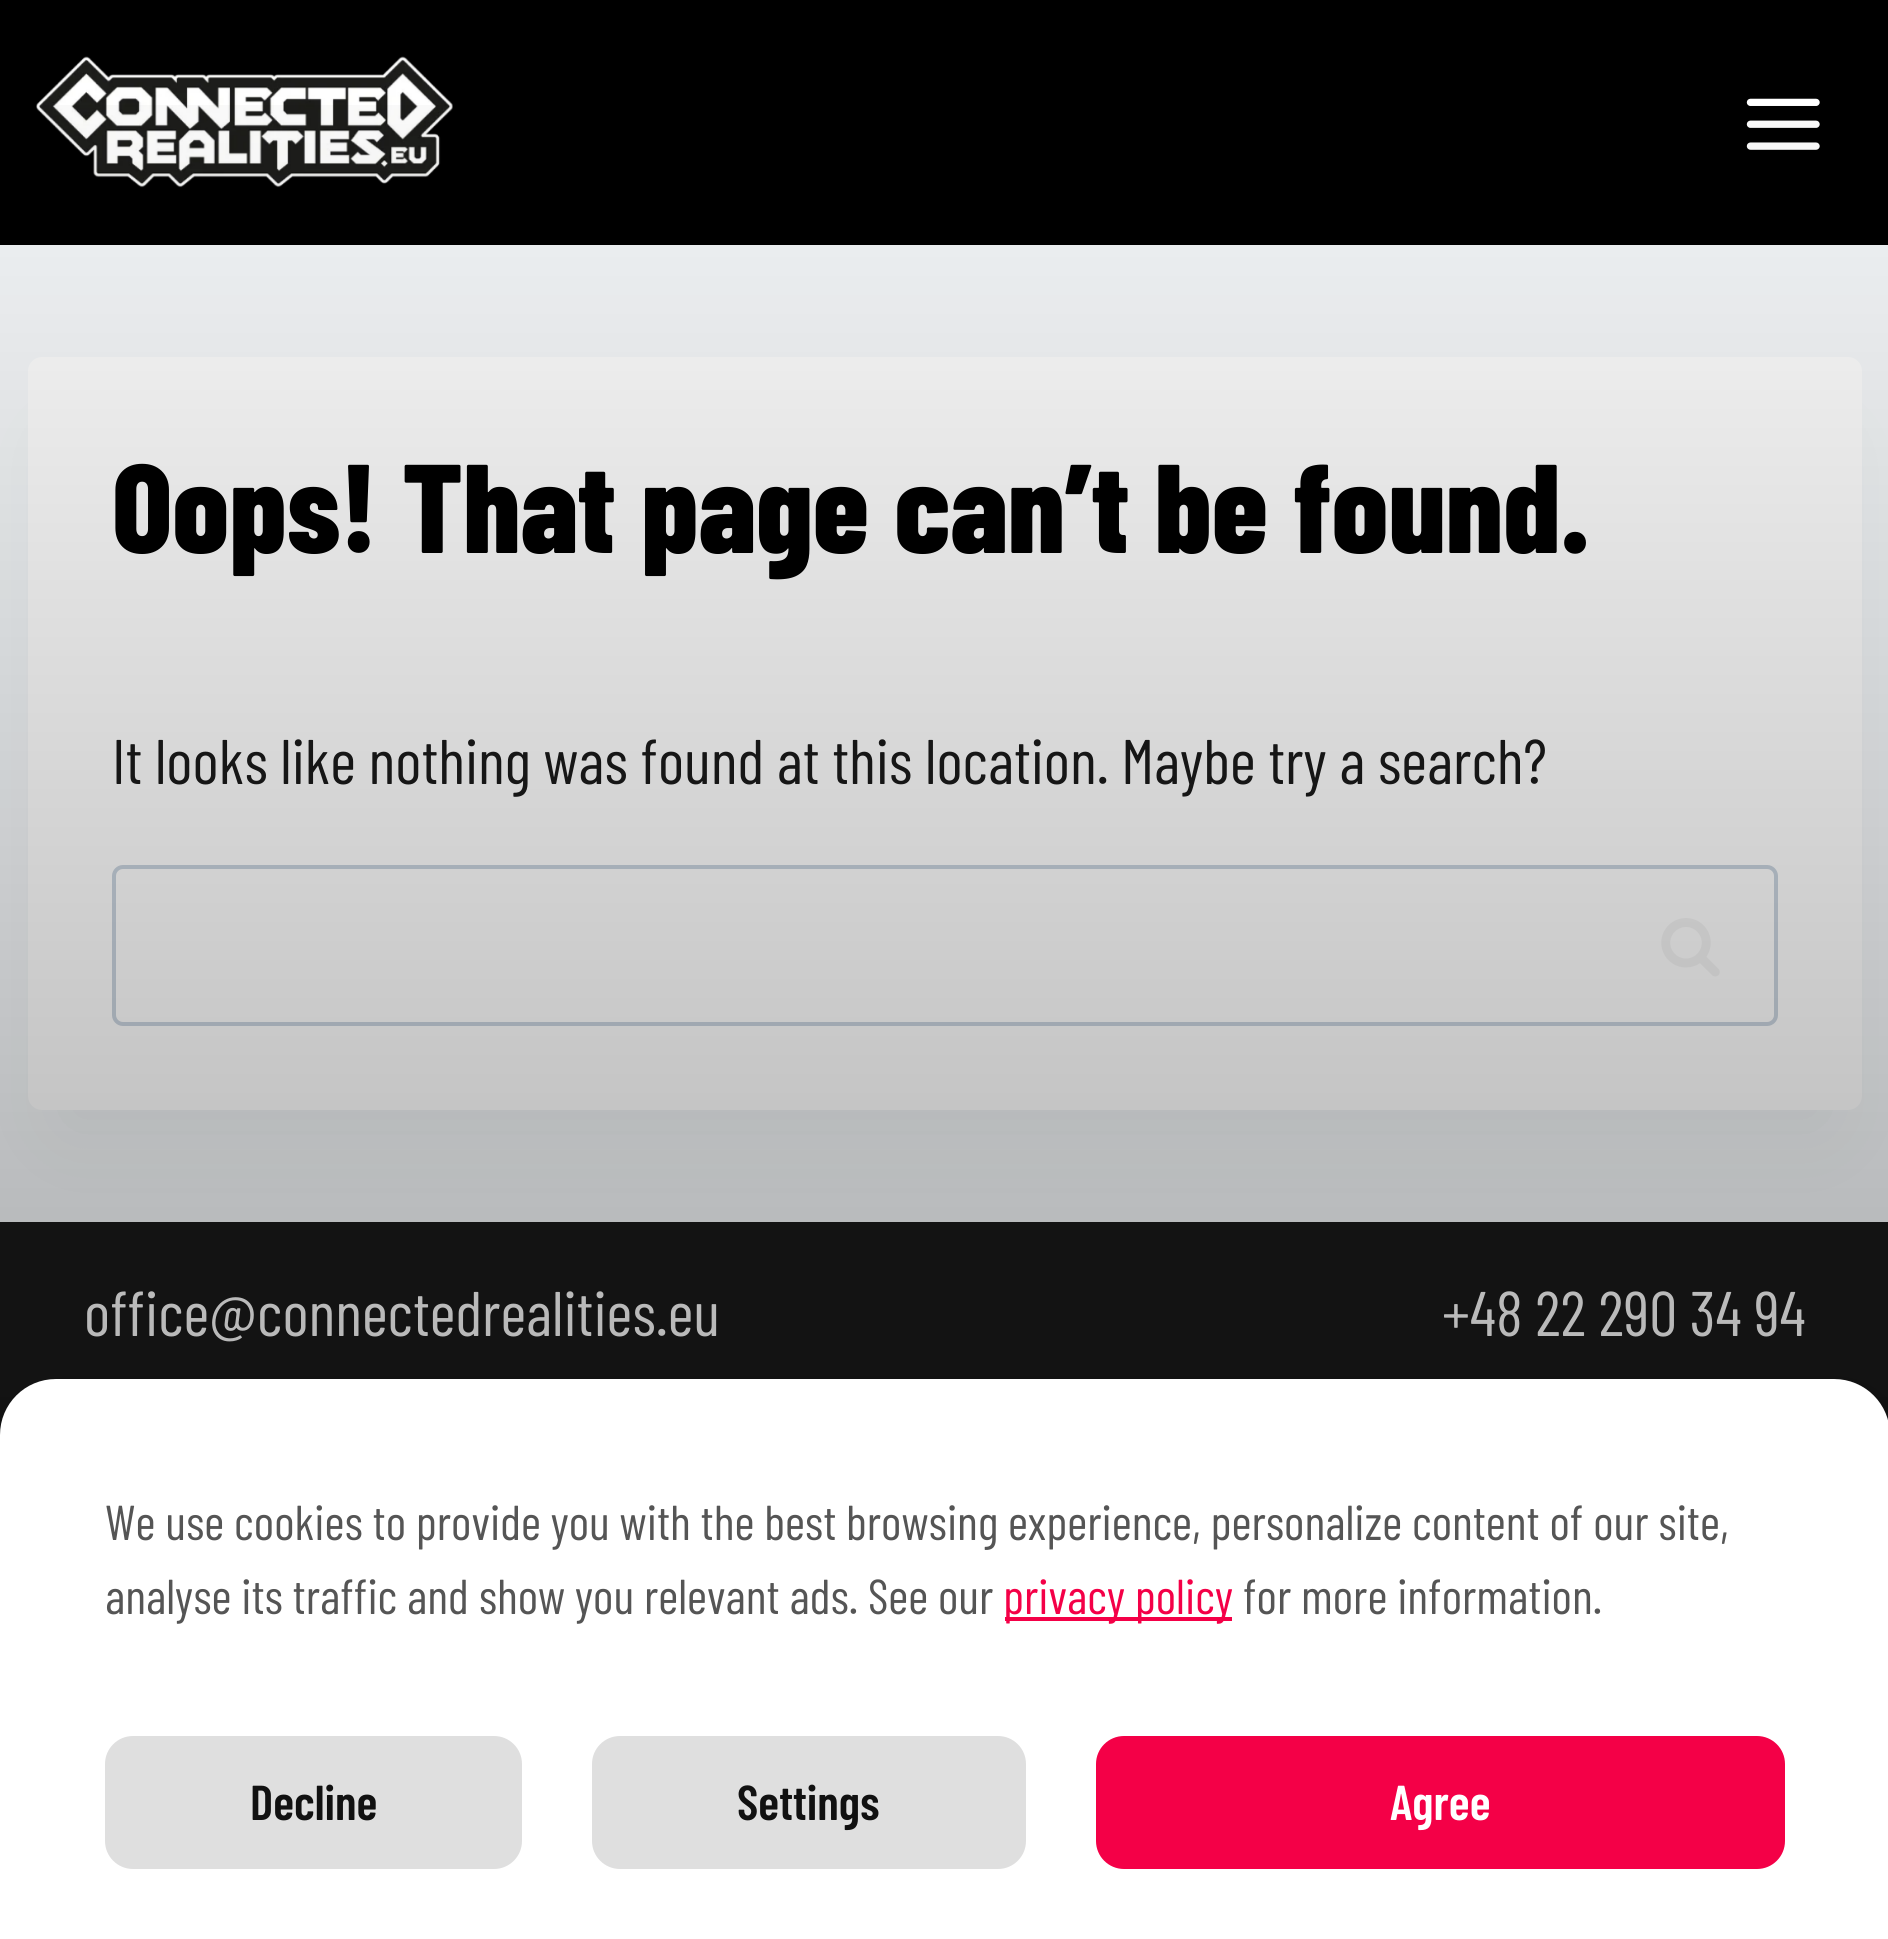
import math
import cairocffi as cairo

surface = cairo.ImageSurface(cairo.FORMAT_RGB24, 1888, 1939)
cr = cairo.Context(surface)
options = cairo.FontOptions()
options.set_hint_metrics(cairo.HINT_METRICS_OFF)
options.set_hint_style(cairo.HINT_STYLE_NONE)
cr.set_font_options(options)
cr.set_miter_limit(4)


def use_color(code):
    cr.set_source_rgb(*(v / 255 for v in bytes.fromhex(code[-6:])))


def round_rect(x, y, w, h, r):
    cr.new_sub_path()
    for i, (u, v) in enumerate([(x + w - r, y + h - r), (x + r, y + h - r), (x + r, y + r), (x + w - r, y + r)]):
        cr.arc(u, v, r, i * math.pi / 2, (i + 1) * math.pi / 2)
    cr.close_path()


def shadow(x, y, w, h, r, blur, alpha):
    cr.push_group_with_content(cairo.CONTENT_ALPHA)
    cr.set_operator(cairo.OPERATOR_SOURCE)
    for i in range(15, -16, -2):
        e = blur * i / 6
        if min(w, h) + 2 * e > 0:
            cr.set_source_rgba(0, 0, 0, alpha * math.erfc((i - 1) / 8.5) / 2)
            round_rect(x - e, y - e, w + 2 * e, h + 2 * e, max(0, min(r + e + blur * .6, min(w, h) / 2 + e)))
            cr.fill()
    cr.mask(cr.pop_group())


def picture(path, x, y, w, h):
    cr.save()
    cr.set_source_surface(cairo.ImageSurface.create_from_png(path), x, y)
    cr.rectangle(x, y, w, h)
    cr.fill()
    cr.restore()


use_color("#f7fafc")
cr.paint()
use_color("#000000")
cr.rectangle(0, 0, 1888, 245)
cr.fill()
picture("img1.png", 36, 56, 417, 132)
picture("img2.png", 1746, 98, 74, 52)
use_color("#000000")
shadow(63, 445, 1764, 682, 0, 44, 0.05)
use_color("#ffffff")
round_rect(28, 357, 1834, 753, 14)
cr.fill()
cr.select_font_face("Barlow Condensed ExtraBold")
cr.set_font_size(126)
use_color("#000000")
cr.move_to(112, 553)
cr.show_text("Oops! That page can’t be found.")
cr.select_font_face("Barlow Condensed")
cr.set_font_size(63)
use_color("#1a1a1a")
cr.move_to(112, 784)
cr.show_text("It looks like nothing was found at this location. Maybe try a search?")
round_rect(114, 867, 1662, 157, 9)
use_color("#cbd5e0")
cr.set_line_width(4)
cr.stroke()
picture("img3.png", 1661, 918, 59, 59)
use_color("#1a1a1a")
cr.rectangle(0, 1222, 1888, 213)
cr.fill()
use_color("#ffffff")
cr.move_to(84, 1336)
cr.show_text("office@connectedrealities.eu")
cr.move_to(1442, 1336)
cr.show_text("+48 22 290 34 94")
gradient = cairo.LinearGradient(945, 1939, 945, 0)
gradient.add_color_stop_rgba(0, 0, 0, 0, 0.4)
gradient.add_color_stop_rgba(1, 0, 0, 0, 0)
cr.set_source(gradient)
cr.rectangle(0, 105, 1888, 1330)
cr.fill()
use_color("#000000")
shadow(7, 1390, 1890, 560, 56, 12, 0.2)
use_color("#ffffff")
cr.new_path()
cr.move_to(56, 1379)
cr.line_to(1834, 1379)
cr.curve_to(1865, 1379, 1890, 1404, 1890, 1435)
cr.line_to(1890, 1939)
cr.line_to(0, 1939)
cr.line_to(0, 1435)
cr.curve_to(0, 1404, 25, 1379, 56, 1379)
cr.close_path()
cr.fill()
cr.set_font_size(49)
use_color("#555555")
cr.move_to(105, 1540)
cr.show_text("We use cookies to provide you with the best browsing experience, personalize content of our site,")
cr.move_to(105, 1614)
cr.show_text("analyse its traffic and show you relevant ads. See our")
use_color("#f40047")
cr.rectangle(1005, 1617, 227, 4)
cr.fill()
cr.move_to(1003, 1614)
cr.show_text("privacy policy")
use_color("#555555")
cr.move_to(1243, 1614)
cr.show_text("for more information.")
use_color("#dfdfdf")
round_rect(105, 1736, 417, 133, 28)
cr.fill()
cr.select_font_face("Barlow Condensed SemiBold")
use_color("#111111")
cr.move_to(250, 1820)
cr.show_text("Decline")
use_color("#dfdfdf")
round_rect(592, 1736, 434, 133, 28)
cr.fill()
use_color("#111111")
cr.move_to(737, 1820)
cr.show_text("Settings")
use_color("#f40047")
round_rect(1096, 1736, 689, 133, 28)
cr.fill()
use_color("#ffffff")
cr.move_to(1390, 1820)
cr.show_text("Agree")
surface.write_to_png("result.png")
